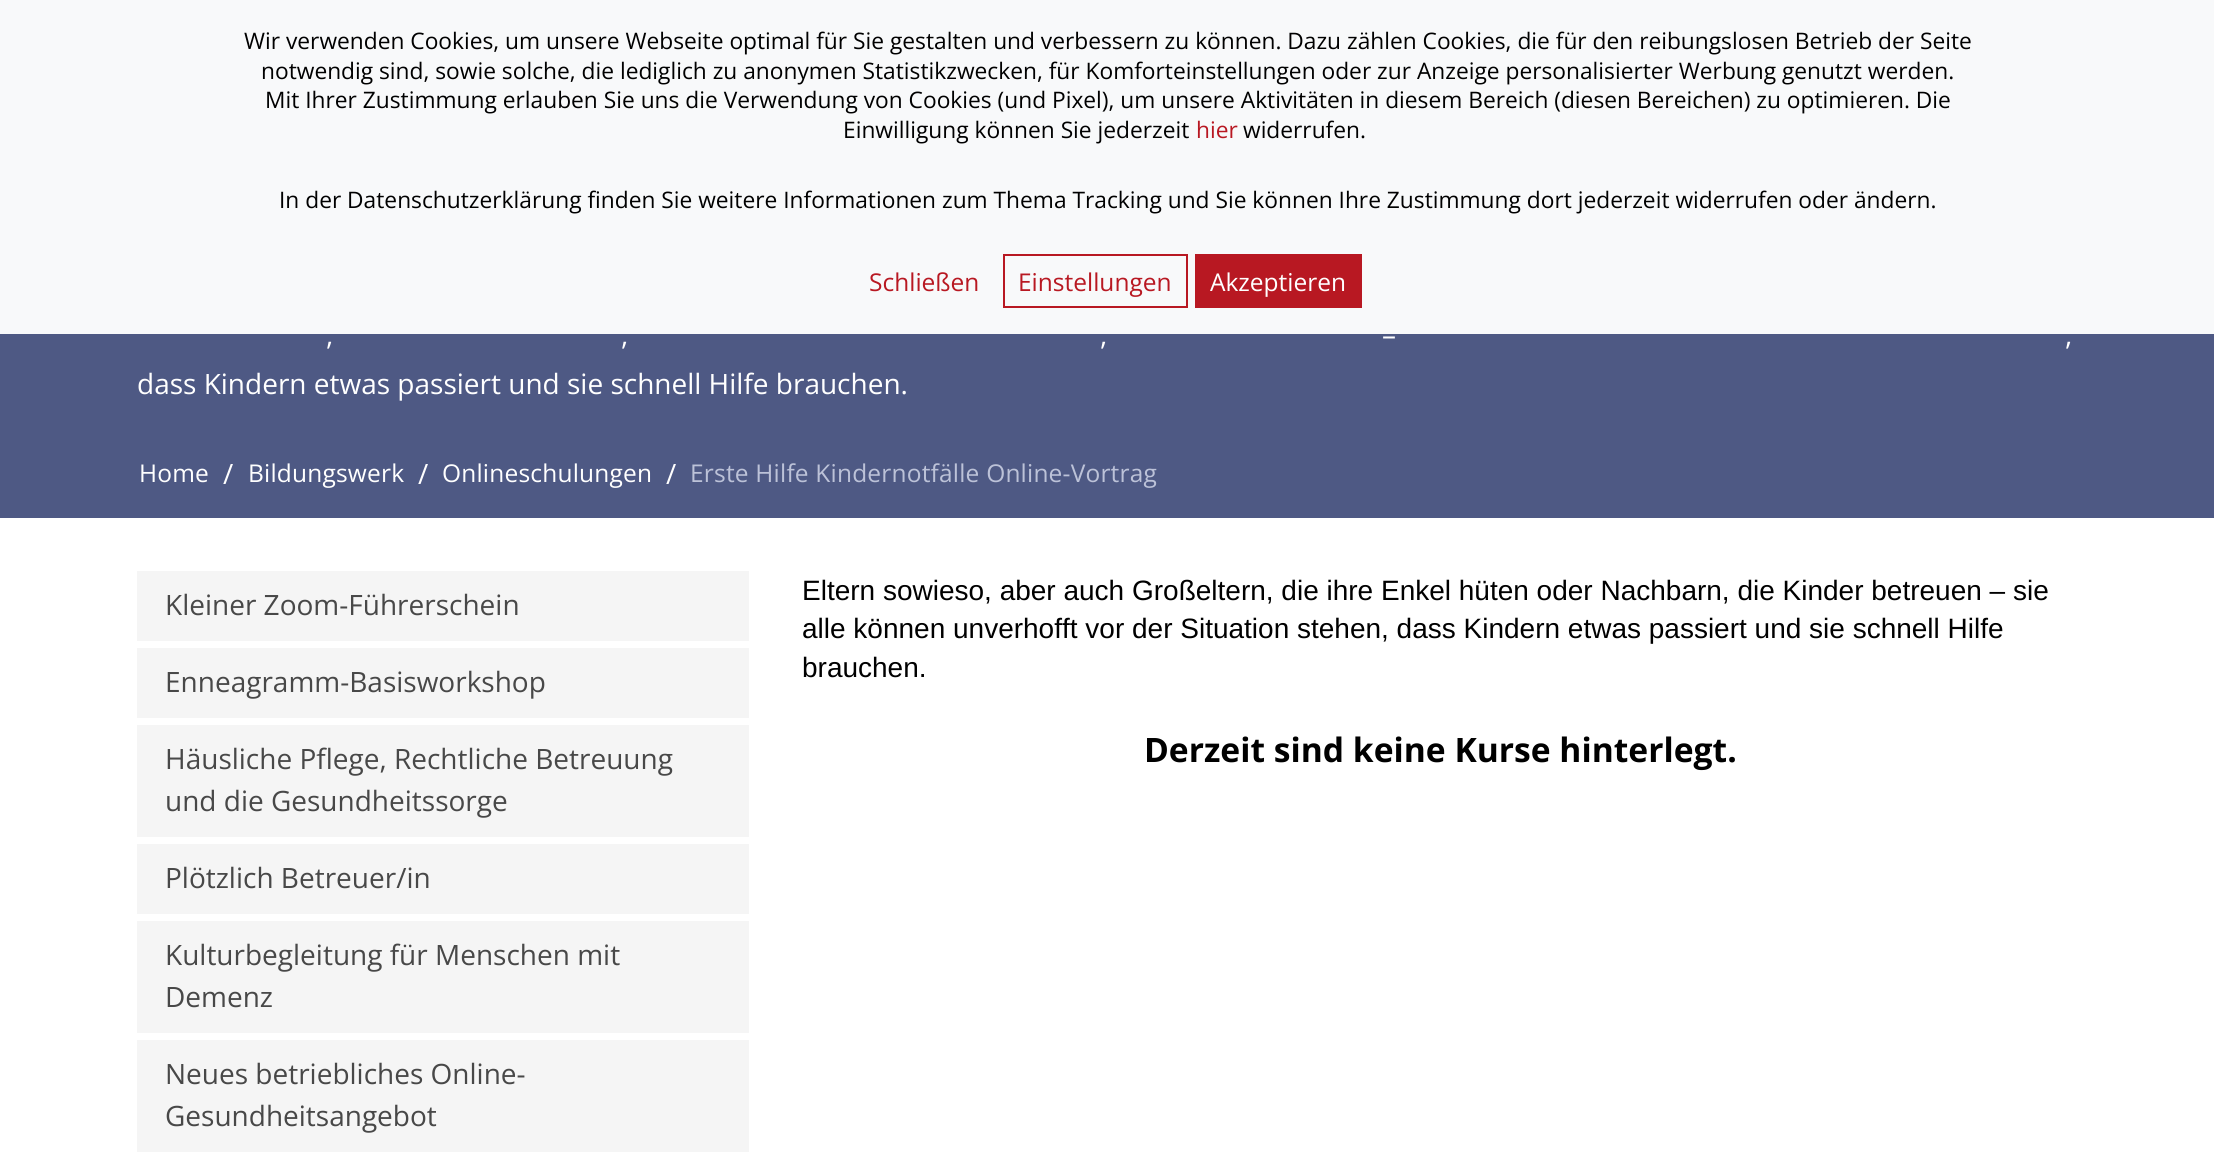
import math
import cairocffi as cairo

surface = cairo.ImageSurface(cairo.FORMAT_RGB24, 2214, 1157)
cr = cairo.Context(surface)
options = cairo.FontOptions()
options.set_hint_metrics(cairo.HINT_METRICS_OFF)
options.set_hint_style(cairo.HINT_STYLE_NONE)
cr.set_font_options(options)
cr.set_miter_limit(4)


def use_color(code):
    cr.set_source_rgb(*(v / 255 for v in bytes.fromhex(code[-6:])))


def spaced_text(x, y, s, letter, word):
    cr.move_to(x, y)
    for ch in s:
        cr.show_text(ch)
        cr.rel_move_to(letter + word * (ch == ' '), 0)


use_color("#ffffff")
cr.paint()
use_color("#f8f9fa")
cr.rectangle(0, 0, 2214, 334)
cr.fill()
cr.select_font_face("Open Sans")
cr.set_font_size(22.75)
use_color("#000000")
cr.move_to(244, 49)
cr.show_text("Wir verwenden Cookies, um unsere Webseite optimal für Sie gestalten und verbessern zu können. Dazu zählen Cookies, die für den reibungslosen Betrieb der Seite")
cr.move_to(261, 79)
cr.show_text("notwendig sind, sowie solche, die lediglich zu anonymen Statistikzwecken, für Komforteinstellungen oder zur Anzeige personalisierter Werbung genutzt werden.")
cr.move_to(265, 108)
cr.show_text("Mit Ihrer Zustimmung erlauben Sie uns die Verwendung von Cookies (und Pixel), um unsere Aktivitäten in diesem Bereich (diesen Bereichen) zu optimieren. Die")
cr.move_to(843, 138)
cr.show_text("Einwilligung können Sie jederzeit")
use_color("#b81822")
cr.move_to(1196, 138)
cr.show_text("hier")
use_color("#000000")
cr.move_to(1243, 138)
cr.show_text("widerrufen.")
cr.move_to(279, 208)
cr.show_text("In der Datenschutzerklärung finden Sie weitere Informationen zum Thema Tracking und Sie können Ihre Zustimmung dort jederzeit widerrufen oder ändern.")
cr.set_font_size(24.5)
use_color("#b81822")
cr.move_to(869, 291)
cr.show_text("Schließen")
cr.rectangle(1004, 255, 183, 52)
cr.stroke()
cr.move_to(1018, 291)
cr.show_text("Einstellungen")
cr.rectangle(1195, 254, 167, 54)
cr.fill()
use_color("#ffffff")
cr.move_to(1210, 291)
cr.show_text("Akzeptieren")
use_color("#4e5984")
cr.rectangle(0, 334, 2214, 184)
cr.fill()
cr.set_font_size(28)
use_color("#ffffff")
cr.move_to(1382, 345)
cr.show_text("–")
cr.move_to(326, 345)
cr.show_text(",")
cr.move_to(621, 345)
cr.show_text(",")
cr.move_to(1100, 345)
cr.show_text(",")
cr.move_to(2065, 345)
cr.show_text(",")
cr.move_to(137, 394)
cr.show_text("dass Kindern etwas passiert und sie schnell Hilfe brauchen.")
cr.set_font_size(24.5)
spaced_text(139, 482, "Home", 0.2, 0)
cr.set_font_size(28)
spaced_text(223, 484, "/", 0.2, 0)
cr.set_font_size(24.5)
spaced_text(248, 482, "Bildungswerk", 0.2, 0)
cr.set_font_size(28)
spaced_text(418, 484, "/", 0.2, 0)
cr.set_font_size(24.5)
spaced_text(442, 482, "Onlineschulungen", 0.2, 0)
cr.set_font_size(28)
spaced_text(666, 484, "/", 0.2, 0)
cr.set_font_size(24.5)
use_color("#bcc2d8")
spaced_text(690, 482, "Erste Hilfe Kindernotfälle Online-Vortrag", 0.2, 0)
use_color("#f5f5f5")
cr.rectangle(137, 571, 612, 70)
cr.fill()
cr.set_font_size(28)
use_color("#484848")
cr.move_to(165, 615)
cr.show_text("Kleiner Zoom-Führerschein")
use_color("#f5f5f5")
cr.rectangle(137, 648, 612, 70)
cr.fill()
use_color("#484848")
cr.move_to(165, 692)
cr.show_text("Enneagramm-Basisworkshop")
use_color("#f5f5f5")
cr.rectangle(137, 725, 612, 112)
cr.fill()
use_color("#484848")
cr.move_to(165, 769)
cr.show_text("Häusliche Pflege, Rechtliche Betreuung")
cr.move_to(165, 811)
cr.show_text("und die Gesundheitssorge")
use_color("#f5f5f5")
cr.rectangle(137, 844, 612, 70)
cr.fill()
use_color("#484848")
cr.move_to(165, 888)
cr.show_text("Plötzlich Betreuer/in")
use_color("#f5f5f5")
cr.rectangle(137, 921, 612, 112)
cr.fill()
use_color("#484848")
cr.move_to(165, 965)
cr.show_text("Kulturbegleitung für Menschen mit")
cr.move_to(165, 1007)
cr.show_text("Demenz")
use_color("#f5f5f5")
cr.rectangle(137, 1040, 612, 112)
cr.fill()
use_color("#484848")
cr.move_to(165, 1084)
cr.show_text("Neues betriebliches Online-")
cr.move_to(165, 1126)
cr.show_text("Gesundheitsangebot")
cr.select_font_face("Liberation Sans")
use_color("#000000")
cr.move_to(802, 600)
cr.show_text("Eltern sowieso, aber auch Großeltern, die ihre Enkel hüten oder Nachbarn, die Kinder betreuen – sie")
cr.move_to(802, 638)
cr.show_text("alle können unverhofft vor der Situation stehen, dass Kindern etwas passiert und sie schnell Hilfe")
cr.move_to(802, 677)
cr.show_text("brauchen.")
cr.select_font_face("Open Sans", cairo.FONT_SLANT_NORMAL, cairo.FONT_WEIGHT_BOLD)
cr.set_font_size(33.6)
cr.move_to(1144, 762)
cr.show_text("Derzeit sind keine Kurse hinterlegt.")
surface.write_to_png("result.png")
